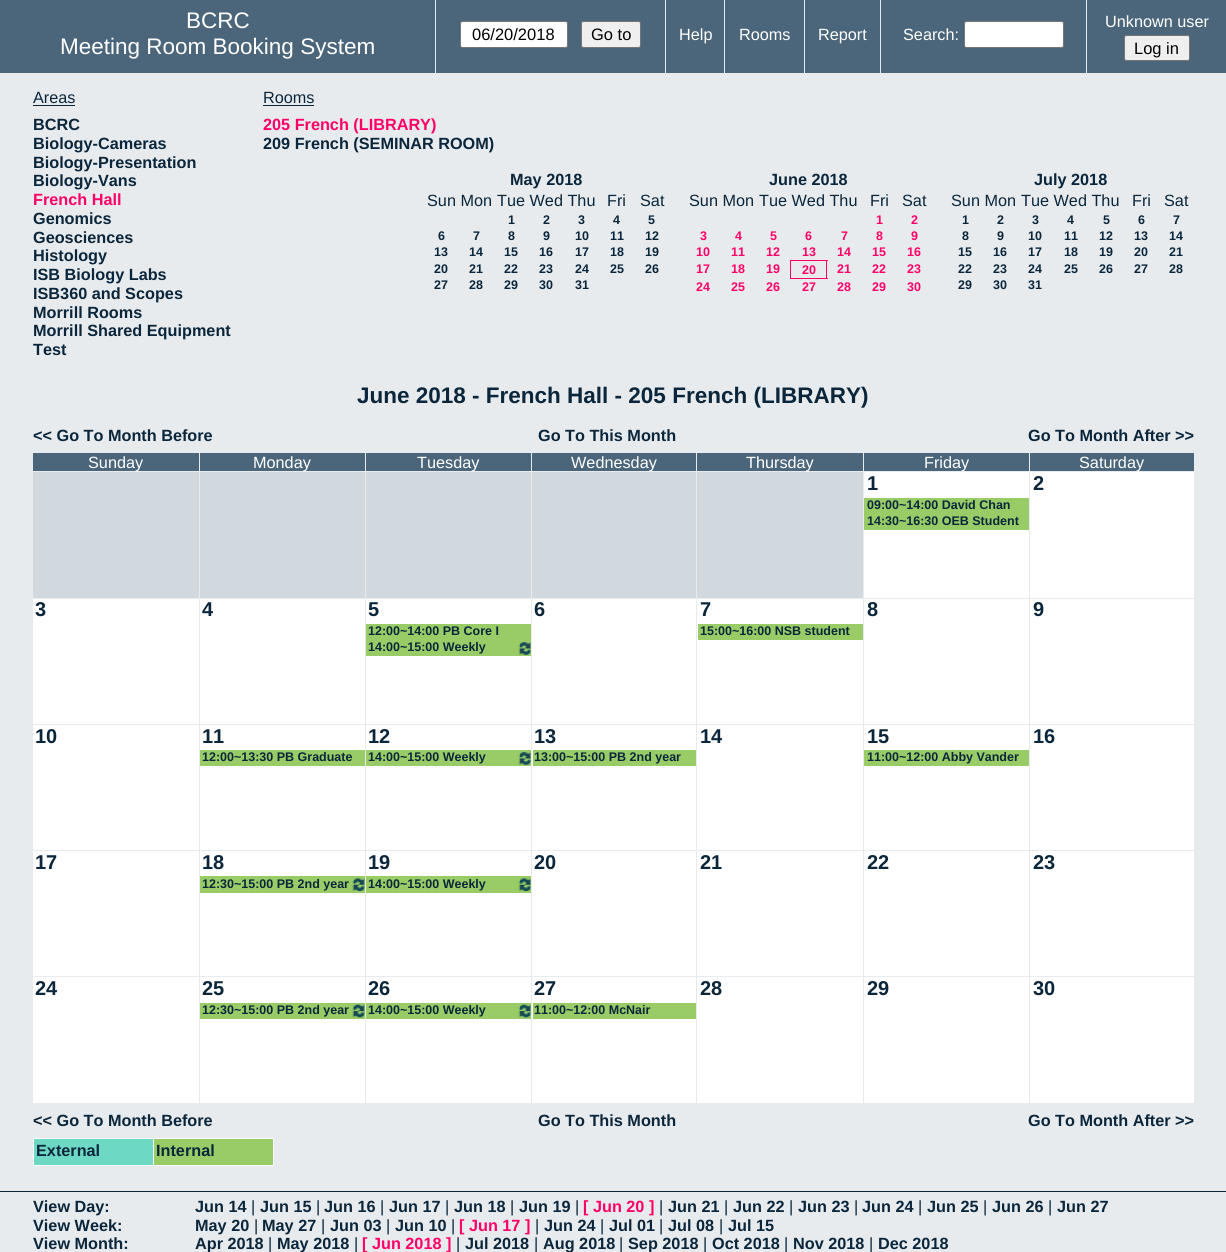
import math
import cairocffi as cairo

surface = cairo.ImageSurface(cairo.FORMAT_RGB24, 1226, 1252)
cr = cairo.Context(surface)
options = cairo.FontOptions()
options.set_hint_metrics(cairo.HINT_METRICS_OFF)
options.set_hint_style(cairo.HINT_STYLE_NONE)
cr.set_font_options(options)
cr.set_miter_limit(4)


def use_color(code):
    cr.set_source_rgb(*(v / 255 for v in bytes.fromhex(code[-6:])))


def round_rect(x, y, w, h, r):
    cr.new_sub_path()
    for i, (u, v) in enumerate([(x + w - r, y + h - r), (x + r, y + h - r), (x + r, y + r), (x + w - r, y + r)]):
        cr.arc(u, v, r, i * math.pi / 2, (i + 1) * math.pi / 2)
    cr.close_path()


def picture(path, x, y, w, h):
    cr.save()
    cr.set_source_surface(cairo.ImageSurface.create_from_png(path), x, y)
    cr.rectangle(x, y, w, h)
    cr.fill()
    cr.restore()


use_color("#e7ebee")
cr.paint()
use_color("#4b667b")
cr.rectangle(0, 0, 1226, 73)
cr.fill()
cr.select_font_face("Liberation Sans")
cr.set_font_size(22.5)
use_color("#ffffff")
cr.move_to(186, 28)
cr.show_text("BCRC")
cr.move_to(60, 54)
cr.show_text("Meeting Room Booking System")
use_color("#e7ebee")
cr.rectangle(435, 0, 1, 73)
cr.fill()
use_color("#ffffff")
round_rect(460.5, 21.5, 107, 26, 2)
cr.fill_preserve()
use_color("#767676")
cr.set_line_width(1)
cr.stroke()
cr.set_font_size(16.5)
use_color("#000000")
cr.move_to(472, 40)
cr.show_text("06/20/2018")
use_color("#efefef")
round_rect(581.5, 21.5, 59, 26, 2)
cr.fill_preserve()
use_color("#767676")
cr.stroke()
use_color("#000000")
cr.move_to(591, 40)
cr.show_text("Go to")
use_color("#e7ebee")
cr.rectangle(665, 0, 1, 73)
cr.fill()
cr.set_font_size(16.25)
use_color("#ffffff")
cr.move_to(679, 40)
cr.show_text("Help")
use_color("#e7ebee")
cr.rectangle(724, 0, 1, 73)
cr.fill()
use_color("#ffffff")
cr.move_to(739, 40)
cr.show_text("Rooms")
use_color("#e7ebee")
cr.rectangle(804, 0, 1, 73)
cr.fill()
use_color("#ffffff")
cr.move_to(818, 40)
cr.show_text("Report")
use_color("#e7ebee")
cr.rectangle(880, 0, 1, 73)
cr.fill()
use_color("#ffffff")
cr.move_to(903, 40)
cr.show_text("Search:")
round_rect(964.5, 21.5, 99, 26, 2)
cr.fill_preserve()
use_color("#767676")
cr.stroke()
use_color("#e7ebee")
cr.rectangle(1086, 0, 1, 73)
cr.fill()
use_color("#ffffff")
cr.move_to(1105, 27)
cr.show_text("Unknown user")
use_color("#efefef")
round_rect(1124.5, 35.5, 65, 25, 2)
cr.fill_preserve()
use_color("#767676")
cr.stroke()
cr.set_font_size(16.5)
use_color("#000000")
cr.move_to(1134, 54)
cr.show_text("Log in")
cr.set_font_size(16.25)
use_color("#0b263b")
cr.move_to(33, 103)
cr.show_text("Areas")
cr.rectangle(33, 105, 42, 1)
cr.fill()
cr.select_font_face("Liberation Sans", cairo.FONT_SLANT_NORMAL, cairo.FONT_WEIGHT_BOLD)
cr.move_to(33, 130)
cr.show_text("BCRC")
cr.move_to(33, 149)
cr.show_text("Biology-Cameras")
cr.move_to(33, 168)
cr.show_text("Biology-Presentation")
cr.move_to(33, 186)
cr.show_text("Biology-Vans")
use_color("#ff0066")
cr.move_to(33, 205)
cr.show_text("French Hall")
use_color("#0b263b")
cr.move_to(33, 224)
cr.show_text("Genomics")
cr.move_to(33, 243)
cr.show_text("Geosciences")
cr.move_to(33, 261)
cr.show_text("Histology")
cr.move_to(33, 280)
cr.show_text("ISB Biology Labs")
cr.move_to(33, 299)
cr.show_text("ISB360 and Scopes")
cr.move_to(33, 318)
cr.show_text("Morrill Rooms")
cr.move_to(33, 336)
cr.show_text("Morrill Shared Equipment")
cr.move_to(33, 355)
cr.show_text("Test")
cr.select_font_face("Liberation Sans")
cr.move_to(263, 103)
cr.show_text("Rooms")
cr.rectangle(263, 105, 51, 1)
cr.fill()
cr.select_font_face("Liberation Sans", cairo.FONT_SLANT_NORMAL, cairo.FONT_WEIGHT_BOLD)
use_color("#ff0066")
cr.move_to(263, 130)
cr.show_text("205 French (LIBRARY)")
use_color("#0b263b")
cr.move_to(263, 149)
cr.show_text("209 French (SEMINAR ROOM)")
cr.move_to(510, 185)
cr.show_text("May 2018")
cr.select_font_face("Liberation Sans")
cr.move_to(427, 206)
cr.show_text("Sun Mon")
cr.move_to(497, 206)
cr.show_text("Tue Wed Thu")
cr.move_to(607, 206)
cr.show_text("Fri")
cr.move_to(640, 206)
cr.show_text("Sat")
cr.select_font_face("Liberation Sans", cairo.FONT_SLANT_NORMAL, cairo.FONT_WEIGHT_BOLD)
cr.set_font_size(12.5)
cr.move_to(508, 224)
cr.show_text("1")
cr.move_to(543, 224)
cr.show_text("2")
cr.move_to(578, 224)
cr.show_text("3")
cr.move_to(613, 224)
cr.show_text("4")
cr.move_to(648, 224)
cr.show_text("5")
cr.move_to(438, 240)
cr.show_text("6")
cr.move_to(473, 240)
cr.show_text("7")
cr.move_to(508, 240)
cr.show_text("8")
cr.move_to(543, 240)
cr.show_text("9")
cr.move_to(575, 240)
cr.show_text("10")
cr.move_to(610, 240)
cr.show_text("11")
cr.move_to(645, 240)
cr.show_text("12")
cr.move_to(434, 256)
cr.show_text("13")
cr.move_to(469, 256)
cr.show_text("14")
cr.move_to(504, 256)
cr.show_text("15")
cr.move_to(539, 256)
cr.show_text("16")
cr.move_to(575, 256)
cr.show_text("17")
cr.move_to(610, 256)
cr.show_text("18")
cr.move_to(645, 256)
cr.show_text("19")
cr.move_to(434, 273)
cr.show_text("20")
cr.move_to(469, 273)
cr.show_text("21")
cr.move_to(504, 273)
cr.show_text("22")
cr.move_to(539, 273)
cr.show_text("23")
cr.move_to(575, 273)
cr.show_text("24")
cr.move_to(610, 273)
cr.show_text("25")
cr.move_to(645, 273)
cr.show_text("26")
cr.move_to(434, 289)
cr.show_text("27")
cr.move_to(469, 289)
cr.show_text("28")
cr.move_to(504, 289)
cr.show_text("29")
cr.move_to(539, 289)
cr.show_text("30")
cr.move_to(575, 289)
cr.show_text("31")
cr.set_font_size(16.25)
cr.move_to(769, 185)
cr.show_text("June 2018")
cr.select_font_face("Liberation Sans")
cr.move_to(689, 206)
cr.show_text("Sun Mon")
cr.move_to(759, 206)
cr.show_text("Tue Wed Thu")
cr.move_to(870, 206)
cr.show_text("Fri")
cr.move_to(902, 206)
cr.show_text("Sat")
cr.select_font_face("Liberation Sans", cairo.FONT_SLANT_NORMAL, cairo.FONT_WEIGHT_BOLD)
cr.set_font_size(12.5)
use_color("#ff0066")
cr.move_to(876, 224)
cr.show_text("1")
cr.move_to(911, 224)
cr.show_text("2")
cr.move_to(700, 240)
cr.show_text("3")
cr.move_to(735, 240)
cr.show_text("4")
cr.move_to(770, 240)
cr.show_text("5")
cr.move_to(805, 240)
cr.show_text("6")
cr.move_to(841, 240)
cr.show_text("7")
cr.move_to(876, 240)
cr.show_text("8")
cr.move_to(911, 240)
cr.show_text("9")
cr.move_to(696, 256)
cr.show_text("10")
cr.move_to(731, 256)
cr.show_text("11")
cr.move_to(766, 256)
cr.show_text("12")
cr.move_to(802, 256)
cr.show_text("13")
cr.move_to(837, 256)
cr.show_text("14")
cr.move_to(872, 256)
cr.show_text("15")
cr.move_to(907, 256)
cr.show_text("16")
cr.move_to(696, 273)
cr.show_text("17")
cr.move_to(731, 273)
cr.show_text("18")
cr.move_to(766, 273)
cr.show_text("19")
cr.rectangle(790, 260, 38, 1)
cr.fill()
cr.rectangle(826, 260, 1, 19)
cr.fill()
cr.rectangle(790, 278, 38, 1)
cr.fill()
cr.rectangle(790, 260, 1, 19)
cr.fill()
cr.move_to(802, 274)
cr.show_text("20")
cr.move_to(837, 273)
cr.show_text("21")
cr.move_to(872, 273)
cr.show_text("22")
cr.move_to(907, 273)
cr.show_text("23")
cr.move_to(696, 291)
cr.show_text("24")
cr.move_to(731, 291)
cr.show_text("25")
cr.move_to(766, 291)
cr.show_text("26")
cr.move_to(802, 291)
cr.show_text("27")
cr.move_to(837, 291)
cr.show_text("28")
cr.move_to(872, 291)
cr.show_text("29")
cr.move_to(907, 291)
cr.show_text("30")
cr.set_font_size(16.25)
use_color("#0b263b")
cr.move_to(1034, 185)
cr.show_text("July 2018")
cr.select_font_face("Liberation Sans")
cr.move_to(951, 206)
cr.show_text("Sun Mon")
cr.move_to(1021, 206)
cr.show_text("Tue Wed Thu")
cr.move_to(1132, 206)
cr.show_text("Fri")
cr.move_to(1164, 206)
cr.show_text("Sat")
cr.select_font_face("Liberation Sans", cairo.FONT_SLANT_NORMAL, cairo.FONT_WEIGHT_BOLD)
cr.set_font_size(12.5)
cr.move_to(962, 224)
cr.show_text("1")
cr.move_to(997, 224)
cr.show_text("2")
cr.move_to(1032, 224)
cr.show_text("3")
cr.move_to(1067, 224)
cr.show_text("4")
cr.move_to(1103, 224)
cr.show_text("5")
cr.move_to(1138, 224)
cr.show_text("6")
cr.move_to(1173, 224)
cr.show_text("7")
cr.move_to(962, 240)
cr.show_text("8")
cr.move_to(997, 240)
cr.show_text("9")
cr.move_to(1028, 240)
cr.show_text("10")
cr.move_to(1064, 240)
cr.show_text("11")
cr.move_to(1099, 240)
cr.show_text("12")
cr.move_to(1134, 240)
cr.show_text("13")
cr.move_to(1169, 240)
cr.show_text("14")
cr.move_to(958, 256)
cr.show_text("15")
cr.move_to(993, 256)
cr.show_text("16")
cr.move_to(1028, 256)
cr.show_text("17")
cr.move_to(1064, 256)
cr.show_text("18")
cr.move_to(1099, 256)
cr.show_text("19")
cr.move_to(1134, 256)
cr.show_text("20")
cr.move_to(1169, 256)
cr.show_text("21")
cr.move_to(958, 273)
cr.show_text("22")
cr.move_to(993, 273)
cr.show_text("23")
cr.move_to(1028, 273)
cr.show_text("24")
cr.move_to(1064, 273)
cr.show_text("25")
cr.move_to(1099, 273)
cr.show_text("26")
cr.move_to(1134, 273)
cr.show_text("27")
cr.move_to(1169, 273)
cr.show_text("28")
cr.move_to(958, 289)
cr.show_text("29")
cr.move_to(993, 289)
cr.show_text("30")
cr.move_to(1028, 289)
cr.show_text("31")
cr.set_font_size(22.5)
cr.move_to(357, 403)
cr.show_text("June 2018 - French Hall - 205 French (LIBRARY)")
cr.set_font_size(16.25)
cr.move_to(33, 441)
cr.show_text("<< Go To Month Before")
cr.move_to(538, 441)
cr.show_text("Go To This Month")
cr.move_to(1028, 441)
cr.show_text("Go To Month After >>")
use_color("#4b667b")
cr.rectangle(33, 453, 166, 18)
cr.fill()
cr.select_font_face("Liberation Sans")
use_color("#ffffff")
cr.move_to(88, 468)
cr.show_text("Sunday")
use_color("#4b667b")
cr.rectangle(200, 453, 165, 18)
cr.fill()
use_color("#ffffff")
cr.move_to(253, 468)
cr.show_text("Monday")
use_color("#4b667b")
cr.rectangle(366, 453, 165, 18)
cr.fill()
use_color("#ffffff")
cr.move_to(417, 468)
cr.show_text("Tuesday")
use_color("#4b667b")
cr.rectangle(532, 453, 164, 18)
cr.fill()
use_color("#ffffff")
cr.move_to(571, 468)
cr.show_text("Wednesday")
use_color("#4b667b")
cr.rectangle(697, 453, 166, 18)
cr.fill()
use_color("#ffffff")
cr.move_to(746, 468)
cr.show_text("Thursday")
use_color("#4b667b")
cr.rectangle(864, 453, 165, 18)
cr.fill()
use_color("#ffffff")
cr.move_to(924, 468)
cr.show_text("Friday")
use_color("#4b667b")
cr.rectangle(1030, 453, 164, 18)
cr.fill()
use_color("#ffffff")
cr.move_to(1079, 468)
cr.show_text("Saturday")
use_color("#d1d9de")
cr.rectangle(33, 472, 166, 126)
cr.fill()
cr.rectangle(200, 472, 165, 126)
cr.fill()
cr.rectangle(366, 472, 165, 126)
cr.fill()
cr.rectangle(532, 472, 164, 126)
cr.fill()
cr.rectangle(697, 472, 166, 126)
cr.fill()
use_color("#ffffff")
cr.rectangle(864, 472, 165, 126)
cr.fill()
cr.select_font_face("Liberation Sans", cairo.FONT_SLANT_NORMAL, cairo.FONT_WEIGHT_BOLD)
cr.set_font_size(20)
use_color("#0b263b")
cr.move_to(867, 490)
cr.show_text("1")
use_color("#99cc66")
cr.rectangle(864, 498, 165, 32)
cr.fill()
cr.set_font_size(12.5)
use_color("#0b263b")
cr.move_to(867, 509)
cr.show_text("09:00~14:00 David Chan")
cr.move_to(867, 525)
cr.show_text("14:30~16:30 OEB Student")
use_color("#ffffff")
cr.rectangle(1030, 472, 164, 126)
cr.fill()
cr.set_font_size(20)
use_color("#0b263b")
cr.move_to(1033, 490)
cr.show_text("2")
use_color("#ffffff")
cr.rectangle(33, 599, 166, 125)
cr.fill()
use_color("#0b263b")
cr.move_to(35, 616)
cr.show_text("3")
use_color("#ffffff")
cr.rectangle(200, 599, 165, 125)
cr.fill()
use_color("#0b263b")
cr.move_to(202, 616)
cr.show_text("4")
use_color("#ffffff")
cr.rectangle(366, 599, 165, 125)
cr.fill()
use_color("#0b263b")
cr.move_to(368, 616)
cr.show_text("5")
use_color("#99cc66")
cr.rectangle(366, 624, 165, 32)
cr.fill()
cr.set_font_size(12.5)
use_color("#0b263b")
cr.move_to(368, 635)
cr.show_text("12:00~14:00 PB Core I")
cr.move_to(368, 651)
cr.show_text("14:00~15:00 Weekly")
picture("img1.png", 518, 642, 13, 13)
use_color("#ffffff")
cr.rectangle(532, 599, 164, 125)
cr.fill()
cr.set_font_size(20)
use_color("#0b263b")
cr.move_to(534, 616)
cr.show_text("6")
use_color("#ffffff")
cr.rectangle(697, 599, 166, 125)
cr.fill()
use_color("#0b263b")
cr.move_to(700, 616)
cr.show_text("7")
use_color("#99cc66")
cr.rectangle(698, 624, 165, 16)
cr.fill()
cr.set_font_size(12.5)
use_color("#0b263b")
cr.move_to(700, 635)
cr.show_text("15:00~16:00 NSB student")
use_color("#ffffff")
cr.rectangle(864, 599, 165, 125)
cr.fill()
cr.set_font_size(20)
use_color("#0b263b")
cr.move_to(867, 616)
cr.show_text("8")
use_color("#ffffff")
cr.rectangle(1030, 599, 164, 125)
cr.fill()
use_color("#0b263b")
cr.move_to(1033, 616)
cr.show_text("9")
use_color("#ffffff")
cr.rectangle(33, 725, 166, 125)
cr.fill()
use_color("#0b263b")
cr.move_to(35, 743)
cr.show_text("10")
use_color("#ffffff")
cr.rectangle(200, 725, 165, 125)
cr.fill()
use_color("#0b263b")
cr.move_to(202, 743)
cr.show_text("11")
use_color("#99cc66")
cr.rectangle(200, 750, 165, 16)
cr.fill()
cr.set_font_size(12.5)
use_color("#0b263b")
cr.move_to(202, 761)
cr.show_text("12:00~13:30 PB Graduate")
use_color("#ffffff")
cr.rectangle(366, 725, 165, 125)
cr.fill()
cr.set_font_size(20)
use_color("#0b263b")
cr.move_to(368, 743)
cr.show_text("12")
use_color("#99cc66")
cr.rectangle(366, 750, 165, 16)
cr.fill()
cr.set_font_size(12.5)
use_color("#0b263b")
cr.move_to(368, 761)
cr.show_text("14:00~15:00 Weekly")
picture("img1.png", 518, 752, 13, 13)
use_color("#ffffff")
cr.rectangle(532, 725, 164, 125)
cr.fill()
cr.set_font_size(20)
use_color("#0b263b")
cr.move_to(534, 743)
cr.show_text("13")
use_color("#99cc66")
cr.rectangle(533, 750, 163, 16)
cr.fill()
cr.set_font_size(12.5)
use_color("#0b263b")
cr.move_to(534, 761)
cr.show_text("13:00~15:00 PB 2nd year")
use_color("#ffffff")
cr.rectangle(697, 725, 166, 125)
cr.fill()
cr.set_font_size(20)
use_color("#0b263b")
cr.move_to(700, 743)
cr.show_text("14")
use_color("#ffffff")
cr.rectangle(864, 725, 165, 125)
cr.fill()
use_color("#0b263b")
cr.move_to(867, 743)
cr.show_text("15")
use_color("#99cc66")
cr.rectangle(864, 750, 165, 16)
cr.fill()
cr.set_font_size(12.5)
use_color("#0b263b")
cr.move_to(867, 761)
cr.show_text("11:00~12:00 Abby Vander")
use_color("#ffffff")
cr.rectangle(1030, 725, 164, 125)
cr.fill()
cr.set_font_size(20)
use_color("#0b263b")
cr.move_to(1033, 743)
cr.show_text("16")
use_color("#ffffff")
cr.rectangle(33, 851, 166, 125)
cr.fill()
use_color("#0b263b")
cr.move_to(35, 869)
cr.show_text("17")
use_color("#ffffff")
cr.rectangle(200, 851, 165, 125)
cr.fill()
use_color("#0b263b")
cr.move_to(202, 869)
cr.show_text("18")
use_color("#99cc66")
cr.rectangle(200, 876, 165, 17)
cr.fill()
cr.set_font_size(12.5)
use_color("#0b263b")
cr.move_to(202, 888)
cr.show_text("12:30~15:00 PB 2nd year")
picture("img2.png", 352, 878, 13, 13)
use_color("#ffffff")
cr.rectangle(366, 851, 165, 125)
cr.fill()
cr.set_font_size(20)
use_color("#0b263b")
cr.move_to(368, 869)
cr.show_text("19")
use_color("#99cc66")
cr.rectangle(366, 876, 165, 17)
cr.fill()
cr.set_font_size(12.5)
use_color("#0b263b")
cr.move_to(368, 888)
cr.show_text("14:00~15:00 Weekly")
picture("img3.png", 518, 878, 13, 13)
use_color("#ffffff")
cr.rectangle(532, 851, 164, 125)
cr.fill()
cr.set_font_size(20)
use_color("#0b263b")
cr.move_to(534, 869)
cr.show_text("20")
use_color("#ffffff")
cr.rectangle(697, 851, 166, 125)
cr.fill()
use_color("#0b263b")
cr.move_to(700, 869)
cr.show_text("21")
use_color("#ffffff")
cr.rectangle(864, 851, 165, 125)
cr.fill()
use_color("#0b263b")
cr.move_to(867, 869)
cr.show_text("22")
use_color("#ffffff")
cr.rectangle(1030, 851, 164, 125)
cr.fill()
use_color("#0b263b")
cr.move_to(1033, 869)
cr.show_text("23")
use_color("#ffffff")
cr.rectangle(33, 977, 166, 126)
cr.fill()
use_color("#0b263b")
cr.move_to(35, 995)
cr.show_text("24")
use_color("#ffffff")
cr.rectangle(200, 977, 165, 126)
cr.fill()
use_color("#0b263b")
cr.move_to(202, 995)
cr.show_text("25")
use_color("#99cc66")
cr.rectangle(200, 1003, 165, 16)
cr.fill()
cr.set_font_size(12.5)
use_color("#0b263b")
cr.move_to(202, 1014)
cr.show_text("12:30~15:00 PB 2nd year")
picture("img4.png", 352, 1004, 13, 14)
use_color("#ffffff")
cr.rectangle(366, 977, 165, 126)
cr.fill()
cr.set_font_size(20)
use_color("#0b263b")
cr.move_to(368, 995)
cr.show_text("26")
use_color("#99cc66")
cr.rectangle(366, 1003, 165, 16)
cr.fill()
cr.set_font_size(12.5)
use_color("#0b263b")
cr.move_to(368, 1014)
cr.show_text("14:00~15:00 Weekly")
picture("img5.png", 518, 1004, 13, 14)
use_color("#ffffff")
cr.rectangle(532, 977, 164, 126)
cr.fill()
cr.set_font_size(20)
use_color("#0b263b")
cr.move_to(534, 995)
cr.show_text("27")
use_color("#99cc66")
cr.rectangle(533, 1003, 163, 16)
cr.fill()
cr.set_font_size(12.5)
use_color("#0b263b")
cr.move_to(534, 1014)
cr.show_text("11:00~12:00 McNair")
use_color("#ffffff")
cr.rectangle(697, 977, 166, 126)
cr.fill()
cr.set_font_size(20)
use_color("#0b263b")
cr.move_to(700, 995)
cr.show_text("28")
use_color("#ffffff")
cr.rectangle(864, 977, 165, 126)
cr.fill()
use_color("#0b263b")
cr.move_to(867, 995)
cr.show_text("29")
use_color("#ffffff")
cr.rectangle(1030, 977, 164, 126)
cr.fill()
use_color("#0b263b")
cr.move_to(1033, 995)
cr.show_text("30")
cr.set_font_size(16.25)
cr.move_to(33, 1126)
cr.show_text("<< Go To Month Before")
cr.move_to(538, 1126)
cr.show_text("Go To This Month")
cr.move_to(1028, 1126)
cr.show_text("Go To Month After >>")
use_color("#6dd9c4")
cr.rectangle(34, 1139, 119, 26)
cr.fill()
use_color("#ffffff")
cr.rectangle(153, 1138, 121, 1)
cr.fill()
cr.rectangle(273, 1138, 1, 28)
cr.fill()
cr.rectangle(153, 1165, 121, 1)
cr.fill()
cr.rectangle(153, 1138, 1, 28)
cr.fill()
cr.rectangle(33, 1138, 121, 1)
cr.fill()
cr.rectangle(33, 1165, 121, 1)
cr.fill()
cr.rectangle(33, 1138, 1, 28)
cr.fill()
use_color("#0b263b")
cr.move_to(36, 1156)
cr.show_text("External")
use_color("#99cc66")
cr.rectangle(154, 1139, 119, 26)
cr.fill()
use_color("#0b263b")
cr.move_to(156, 1156)
cr.show_text("Internal")
cr.rectangle(0, 1191, 1226, 1)
cr.fill()
cr.move_to(33, 1212)
cr.show_text("View Day:")
cr.move_to(195, 1212)
cr.show_text("Jun 14")
cr.select_font_face("Liberation Sans")
cr.move_to(251, 1212)
cr.show_text("|")
cr.select_font_face("Liberation Sans", cairo.FONT_SLANT_NORMAL, cairo.FONT_WEIGHT_BOLD)
cr.move_to(260, 1212)
cr.show_text("Jun 15")
cr.select_font_face("Liberation Sans")
cr.move_to(316, 1212)
cr.show_text("|")
cr.select_font_face("Liberation Sans", cairo.FONT_SLANT_NORMAL, cairo.FONT_WEIGHT_BOLD)
cr.move_to(324, 1212)
cr.show_text("Jun 16")
cr.select_font_face("Liberation Sans")
cr.move_to(380, 1212)
cr.show_text("|")
cr.select_font_face("Liberation Sans", cairo.FONT_SLANT_NORMAL, cairo.FONT_WEIGHT_BOLD)
cr.move_to(389, 1212)
cr.show_text("Jun 17")
cr.select_font_face("Liberation Sans")
cr.move_to(445, 1212)
cr.show_text("|")
cr.select_font_face("Liberation Sans", cairo.FONT_SLANT_NORMAL, cairo.FONT_WEIGHT_BOLD)
cr.move_to(454, 1212)
cr.show_text("Jun 18")
cr.select_font_face("Liberation Sans")
cr.move_to(510, 1212)
cr.show_text("|")
cr.select_font_face("Liberation Sans", cairo.FONT_SLANT_NORMAL, cairo.FONT_WEIGHT_BOLD)
cr.move_to(519, 1212)
cr.show_text("Jun 19")
cr.select_font_face("Liberation Sans")
cr.move_to(575, 1212)
cr.show_text("|")
cr.select_font_face("Liberation Sans", cairo.FONT_SLANT_NORMAL, cairo.FONT_WEIGHT_BOLD)
use_color("#ff0066")
cr.move_to(583, 1212)
cr.show_text("[ Jun 20 ]")
cr.select_font_face("Liberation Sans")
use_color("#0b263b")
cr.move_to(659, 1212)
cr.show_text("|")
cr.select_font_face("Liberation Sans", cairo.FONT_SLANT_NORMAL, cairo.FONT_WEIGHT_BOLD)
cr.move_to(668, 1212)
cr.show_text("Jun 21")
cr.select_font_face("Liberation Sans")
cr.move_to(724, 1212)
cr.show_text("|")
cr.select_font_face("Liberation Sans", cairo.FONT_SLANT_NORMAL, cairo.FONT_WEIGHT_BOLD)
cr.move_to(733, 1212)
cr.show_text("Jun 22")
cr.select_font_face("Liberation Sans")
cr.move_to(789, 1212)
cr.show_text("|")
cr.select_font_face("Liberation Sans", cairo.FONT_SLANT_NORMAL, cairo.FONT_WEIGHT_BOLD)
cr.move_to(798, 1212)
cr.show_text("Jun 23")
cr.select_font_face("Liberation Sans")
cr.move_to(854, 1212)
cr.show_text("|")
cr.select_font_face("Liberation Sans", cairo.FONT_SLANT_NORMAL, cairo.FONT_WEIGHT_BOLD)
cr.move_to(862, 1212)
cr.show_text("Jun 24")
cr.select_font_face("Liberation Sans")
cr.move_to(918, 1212)
cr.show_text("|")
cr.select_font_face("Liberation Sans", cairo.FONT_SLANT_NORMAL, cairo.FONT_WEIGHT_BOLD)
cr.move_to(927, 1212)
cr.show_text("Jun 25")
cr.select_font_face("Liberation Sans")
cr.move_to(983, 1212)
cr.show_text("|")
cr.select_font_face("Liberation Sans", cairo.FONT_SLANT_NORMAL, cairo.FONT_WEIGHT_BOLD)
cr.move_to(992, 1212)
cr.show_text("Jun 26")
cr.select_font_face("Liberation Sans")
cr.move_to(1048, 1212)
cr.show_text("|")
cr.select_font_face("Liberation Sans", cairo.FONT_SLANT_NORMAL, cairo.FONT_WEIGHT_BOLD)
cr.move_to(1057, 1212)
cr.show_text("Jun 27")
cr.move_to(33, 1231)
cr.show_text("View Week:")
cr.move_to(195, 1231)
cr.show_text("May 20")
cr.select_font_face("Liberation Sans")
cr.move_to(254, 1231)
cr.show_text("|")
cr.select_font_face("Liberation Sans", cairo.FONT_SLANT_NORMAL, cairo.FONT_WEIGHT_BOLD)
cr.move_to(262, 1231)
cr.show_text("May 27")
cr.select_font_face("Liberation Sans")
cr.move_to(321, 1231)
cr.show_text("|")
cr.select_font_face("Liberation Sans", cairo.FONT_SLANT_NORMAL, cairo.FONT_WEIGHT_BOLD)
cr.move_to(330, 1231)
cr.show_text("Jun 03")
cr.select_font_face("Liberation Sans")
cr.move_to(386, 1231)
cr.show_text("|")
cr.select_font_face("Liberation Sans", cairo.FONT_SLANT_NORMAL, cairo.FONT_WEIGHT_BOLD)
cr.move_to(395, 1231)
cr.show_text("Jun 10")
cr.select_font_face("Liberation Sans")
cr.move_to(451, 1231)
cr.show_text("|")
cr.select_font_face("Liberation Sans", cairo.FONT_SLANT_NORMAL, cairo.FONT_WEIGHT_BOLD)
use_color("#ff0066")
cr.move_to(459, 1231)
cr.show_text("[ Jun 17 ]")
cr.select_font_face("Liberation Sans")
use_color("#0b263b")
cr.move_to(535, 1231)
cr.show_text("|")
cr.select_font_face("Liberation Sans", cairo.FONT_SLANT_NORMAL, cairo.FONT_WEIGHT_BOLD)
cr.move_to(544, 1231)
cr.show_text("Jun 24")
cr.select_font_face("Liberation Sans")
cr.move_to(600, 1231)
cr.show_text("|")
cr.select_font_face("Liberation Sans", cairo.FONT_SLANT_NORMAL, cairo.FONT_WEIGHT_BOLD)
cr.move_to(609, 1231)
cr.show_text("Jul 01")
cr.select_font_face("Liberation Sans")
cr.move_to(659, 1231)
cr.show_text("|")
cr.select_font_face("Liberation Sans", cairo.FONT_SLANT_NORMAL, cairo.FONT_WEIGHT_BOLD)
cr.move_to(668, 1231)
cr.show_text("Jul 08")
cr.select_font_face("Liberation Sans")
cr.move_to(719, 1231)
cr.show_text("|")
cr.select_font_face("Liberation Sans", cairo.FONT_SLANT_NORMAL, cairo.FONT_WEIGHT_BOLD)
cr.move_to(728, 1231)
cr.show_text("Jul 15")
cr.move_to(33, 1249)
cr.show_text("View Month:")
cr.move_to(195, 1249)
cr.show_text("Apr 2018")
cr.select_font_face("Liberation Sans")
cr.move_to(268, 1249)
cr.show_text("|")
cr.select_font_face("Liberation Sans", cairo.FONT_SLANT_NORMAL, cairo.FONT_WEIGHT_BOLD)
cr.move_to(277, 1249)
cr.show_text("May 2018")
cr.select_font_face("Liberation Sans")
cr.move_to(354, 1249)
cr.show_text("|")
cr.select_font_face("Liberation Sans", cairo.FONT_SLANT_NORMAL, cairo.FONT_WEIGHT_BOLD)
use_color("#ff0066")
cr.move_to(362, 1249)
cr.show_text("[ Jun 2018 ]")
cr.select_font_face("Liberation Sans")
use_color("#0b263b")
cr.move_to(456, 1249)
cr.show_text("|")
cr.select_font_face("Liberation Sans", cairo.FONT_SLANT_NORMAL, cairo.FONT_WEIGHT_BOLD)
cr.move_to(465, 1249)
cr.show_text("Jul 2018")
cr.select_font_face("Liberation Sans")
cr.move_to(534, 1249)
cr.show_text("|")
cr.select_font_face("Liberation Sans", cairo.FONT_SLANT_NORMAL, cairo.FONT_WEIGHT_BOLD)
cr.move_to(543, 1249)
cr.show_text("Aug 2018")
cr.select_font_face("Liberation Sans")
cr.move_to(619, 1249)
cr.show_text("|")
cr.select_font_face("Liberation Sans", cairo.FONT_SLANT_NORMAL, cairo.FONT_WEIGHT_BOLD)
cr.move_to(628, 1249)
cr.show_text("Sep 2018")
cr.select_font_face("Liberation Sans")
cr.move_to(703, 1249)
cr.show_text("|")
cr.select_font_face("Liberation Sans", cairo.FONT_SLANT_NORMAL, cairo.FONT_WEIGHT_BOLD)
cr.move_to(712, 1249)
cr.show_text("Oct 2018")
cr.select_font_face("Liberation Sans")
cr.move_to(784, 1249)
cr.show_text("|")
cr.select_font_face("Liberation Sans", cairo.FONT_SLANT_NORMAL, cairo.FONT_WEIGHT_BOLD)
cr.move_to(793, 1249)
cr.show_text("Nov 2018")
cr.select_font_face("Liberation Sans")
cr.move_to(869, 1249)
cr.show_text("|")
cr.select_font_face("Liberation Sans", cairo.FONT_SLANT_NORMAL, cairo.FONT_WEIGHT_BOLD)
cr.move_to(878, 1249)
cr.show_text("Dec 2018")
surface.write_to_png("result.png")
